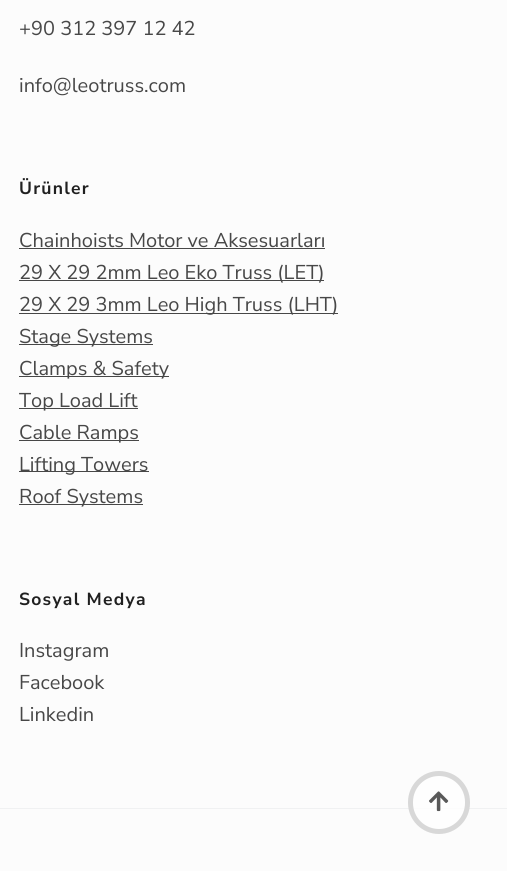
import math
import cairocffi as cairo

surface = cairo.ImageSurface(cairo.FORMAT_RGB24, 507, 871)
cr = cairo.Context(surface)
options = cairo.FontOptions()
options.set_hint_metrics(cairo.HINT_METRICS_OFF)
options.set_hint_style(cairo.HINT_STYLE_NONE)
cr.set_font_options(options)
cr.set_miter_limit(4)


def use_color(code):
    cr.set_source_rgb(*(v / 255 for v in bytes.fromhex(code[-6:])))


def spaced_text(x, y, s, letter, word):
    cr.move_to(x, y)
    for ch in s:
        cr.show_text(ch)
        cr.rel_move_to(letter + word * (ch == ' '), 0)


def round_rect(x, y, w, h, r):
    cr.new_sub_path()
    for i, (u, v) in enumerate([(x + w - r, y + h - r), (x + r, y + h - r), (x + r, y + r), (x + w - r, y + r)]):
        cr.arc(u, v, r, i * math.pi / 2, (i + 1) * math.pi / 2)
    cr.close_path()


def picture(path, x, y, w, h):
    cr.save()
    cr.set_source_surface(cairo.ImageSurface.create_from_png(path), x, y)
    cr.rectangle(x, y, w, h)
    cr.fill()
    cr.restore()


use_color("#fcfcfc")
cr.paint()
cr.select_font_face("Nunito Sans")
cr.set_font_size(20)
use_color("#474747")
cr.move_to(19, 35)
cr.show_text("+90 312 397 12 42")
cr.move_to(19, 92)
cr.show_text("info@leotruss.com")
cr.select_font_face("Nunito Sans", cairo.FONT_SLANT_NORMAL, cairo.FONT_WEIGHT_BOLD)
cr.set_font_size(17.5)
use_color("#202020")
spaced_text(19, 194, "Ürünler", 1.25, 0)
cr.select_font_face("Nunito Sans")
cr.set_font_size(20)
use_color("#474747")
cr.move_to(19, 247)
cr.show_text("Chainhoists Motor ve Aksesuarları")
cr.rectangle(19, 248, 306, 1)
cr.fill()
cr.rectangle(19, 280, 305, 1)
cr.fill()
cr.move_to(19, 279)
cr.show_text("29 X 29 2mm Leo Eko Truss (LET)")
cr.rectangle(19, 313, 319, 1)
cr.fill()
cr.move_to(19, 311)
cr.show_text("29 X 29 3mm Leo High Truss (LHT)")
cr.rectangle(19, 344, 134, 1)
cr.fill()
cr.move_to(19, 343)
cr.show_text("Stage Systems")
cr.rectangle(19, 376, 150, 1)
cr.fill()
cr.move_to(19, 375)
cr.show_text("Clamps & Safety")
cr.rectangle(19, 408, 119, 1)
cr.fill()
cr.move_to(19, 407)
cr.show_text("Top Load Lift")
cr.rectangle(19, 440, 120, 1)
cr.fill()
cr.move_to(19, 439)
cr.show_text("Cable Ramps")
cr.rectangle(19, 471, 130, 1)
cr.fill()
cr.move_to(19, 471)
cr.show_text("Lifting Towers")
cr.rectangle(19, 504, 124, 1)
cr.fill()
cr.move_to(19, 503)
cr.show_text("Roof Systems")
cr.select_font_face("Nunito Sans", cairo.FONT_SLANT_NORMAL, cairo.FONT_WEIGHT_BOLD)
cr.set_font_size(17.5)
use_color("#202020")
spaced_text(19, 605, "Sosyal Medya", 1.25, 0)
cr.select_font_face("Nunito Sans")
cr.set_font_size(20)
use_color("#474747")
cr.move_to(19, 657)
cr.show_text("Instagram")
cr.move_to(19, 689)
cr.show_text("Facebook")
cr.move_to(19, 721)
cr.show_text("Linkedin")
use_color("#f0f1f2")
cr.rectangle(0, 808, 507, 1)
cr.fill()
cr.set_source_rgba(1, 1, 1, 0.8)
round_rect(410.5, 773.5, 57, 58, 28.5)
cr.fill_preserve()
use_color("#d8d8d8")
cr.set_line_width(5)
cr.stroke()
picture("img1.png", 429, 791, 20, 21)
surface.write_to_png("result.png")
